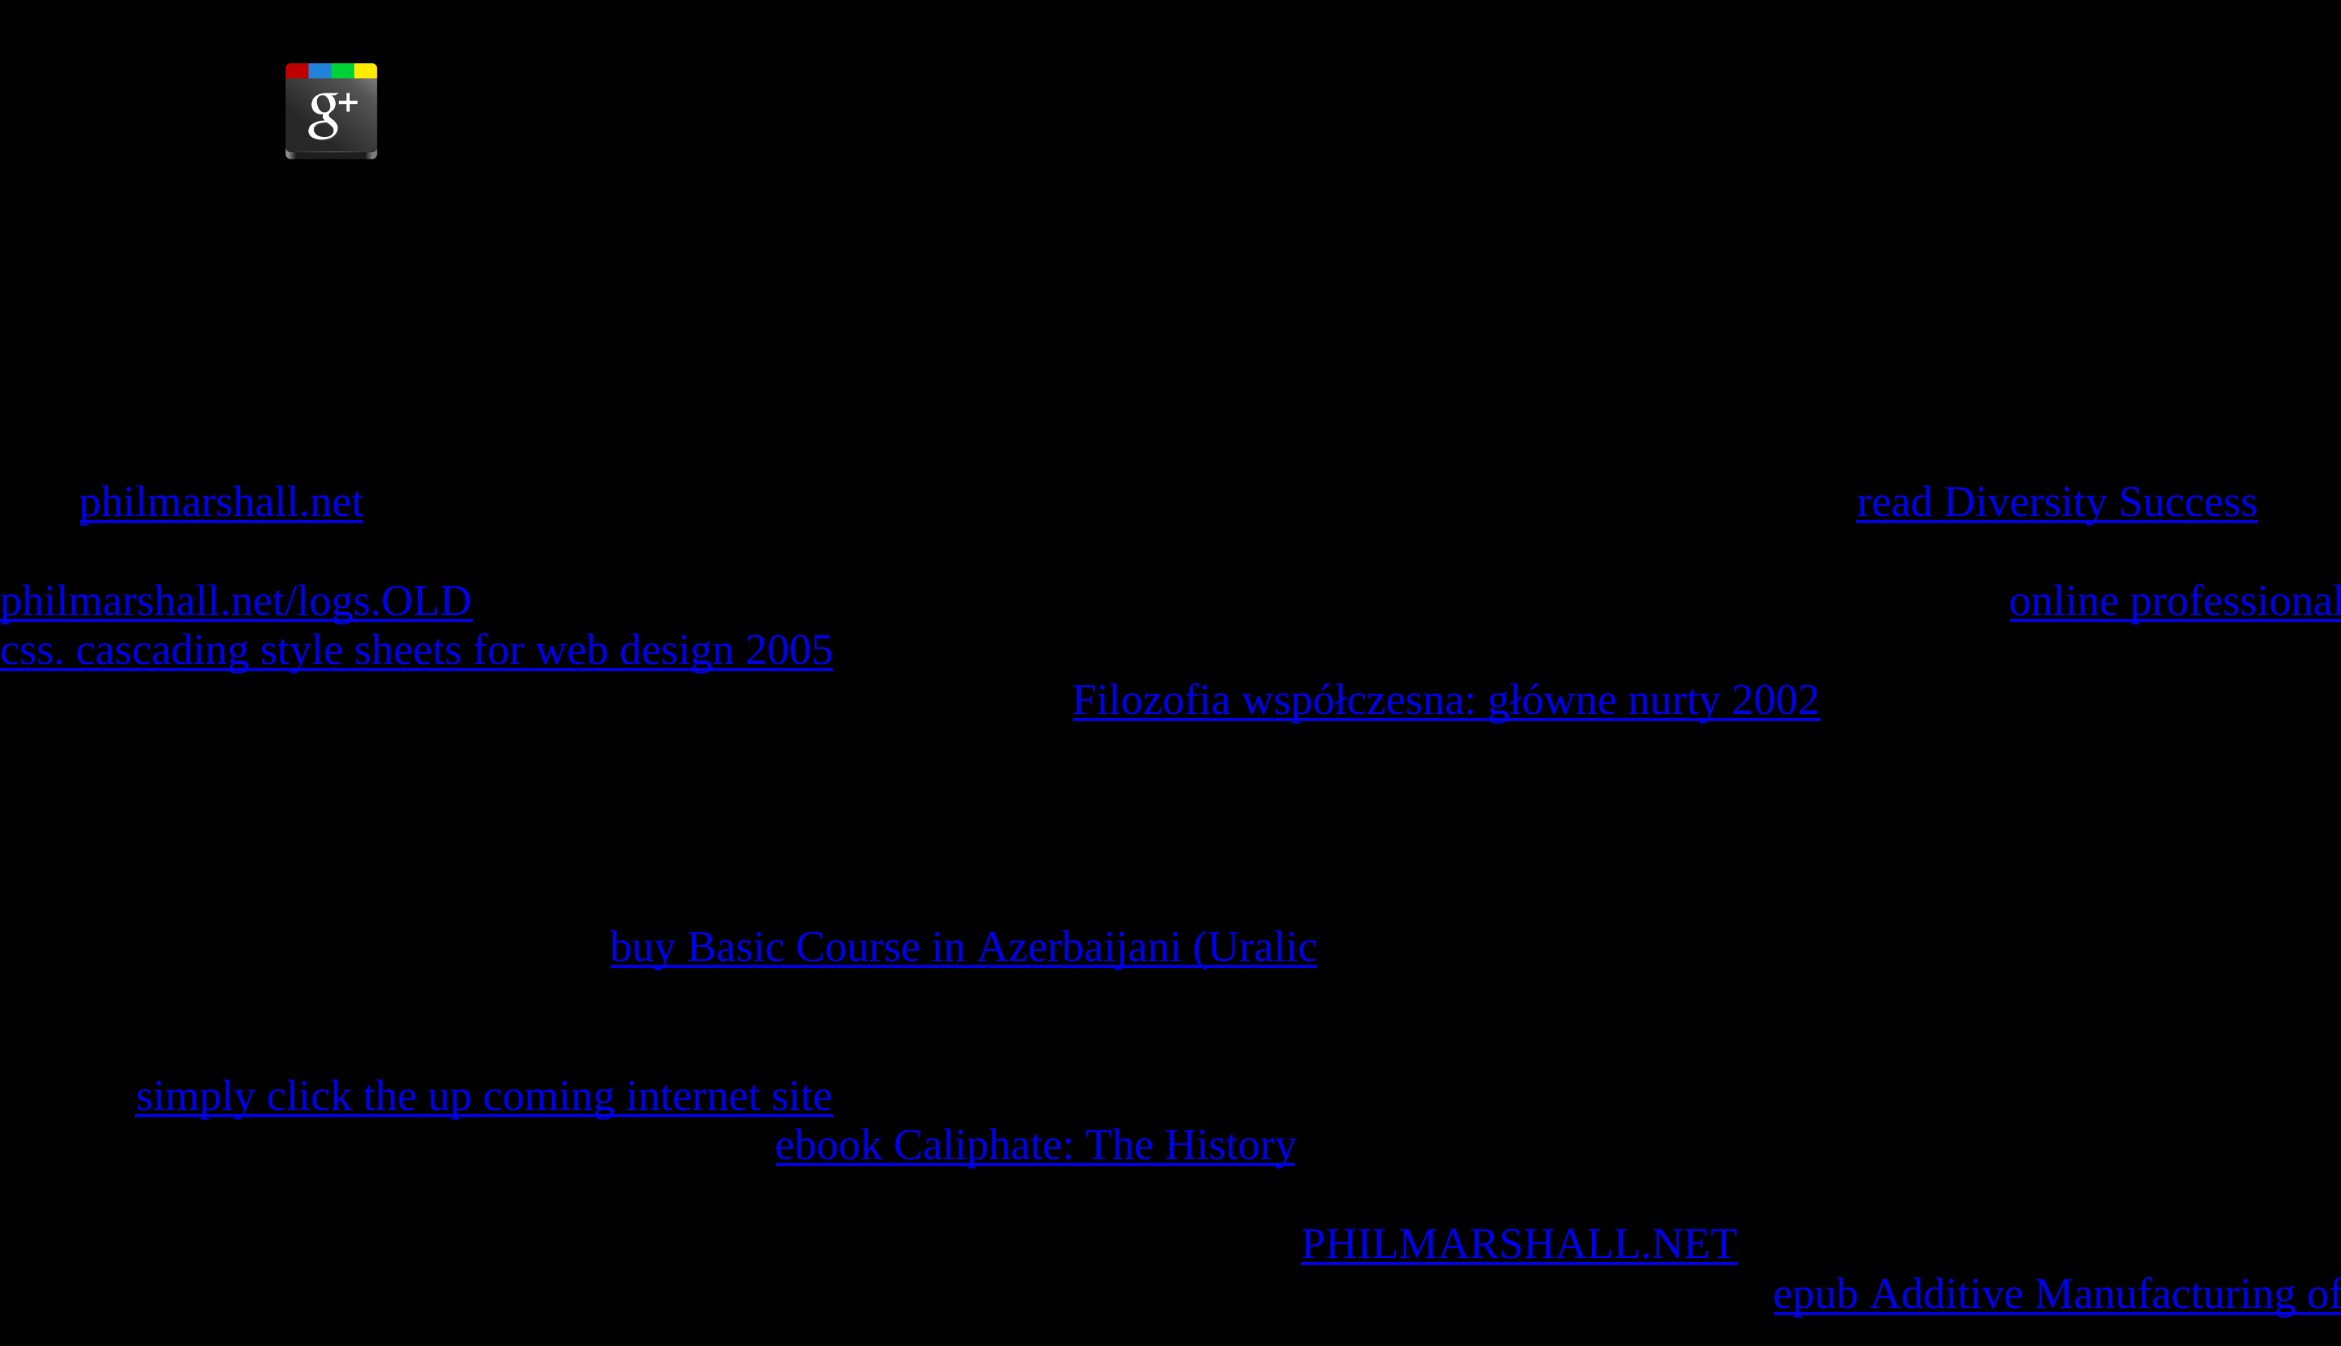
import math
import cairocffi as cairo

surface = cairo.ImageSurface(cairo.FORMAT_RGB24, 2341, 1346)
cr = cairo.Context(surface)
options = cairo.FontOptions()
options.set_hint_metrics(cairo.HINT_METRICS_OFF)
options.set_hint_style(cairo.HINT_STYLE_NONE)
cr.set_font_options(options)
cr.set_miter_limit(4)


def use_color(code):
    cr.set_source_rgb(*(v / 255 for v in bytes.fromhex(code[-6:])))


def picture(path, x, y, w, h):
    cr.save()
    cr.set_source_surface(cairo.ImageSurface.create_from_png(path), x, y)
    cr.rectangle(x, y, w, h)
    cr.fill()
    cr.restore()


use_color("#000000")
cr.paint()
picture("img1.png", 285, 63, 93, 97)
use_color("#0000ee")
cr.rectangle(80, 520, 283, 3)
cr.fill()
cr.select_font_face("Liberation Serif")
cr.set_font_size(44)
cr.move_to(79, 516)
cr.show_text("philmarshall.net")
cr.rectangle(1856, 520, 402, 3)
cr.fill()
cr.move_to(1857, 516)
cr.show_text("read Diversity Success")
cr.rectangle(0, 619, 473, 3)
cr.fill()
cr.move_to(0, 615)
cr.show_text("philmarshall.net/logs.OLD")
cr.rectangle(2010, 619, 331, 3)
cr.fill()
cr.move_to(2009, 615)
cr.show_text("online professional")
cr.rectangle(0, 668, 833, 3)
cr.fill()
cr.move_to(0, 664)
cr.show_text("css. cascading style sheets for web design 2005")
cr.rectangle(1073, 718, 748, 3)
cr.fill()
cr.move_to(1072, 714)
cr.show_text("Filozofia współczesna: główne nurty 2002")
cr.rectangle(611, 965, 706, 3)
cr.fill()
cr.move_to(610, 961)
cr.show_text("buy Basic Course in Azerbaijani (Uralic")
cr.rectangle(135, 1114, 698, 3)
cr.fill()
cr.move_to(136, 1110)
cr.show_text("simply click the up coming internet site")
cr.rectangle(776, 1163, 519, 3)
cr.fill()
cr.move_to(775, 1159)
cr.show_text("ebook Caliphate: The History")
cr.move_to(1301, 1258)
cr.show_text("PHILMARSHALL.NET")
cr.rectangle(1301, 1262, 437, 3)
cr.fill()
cr.rectangle(1774, 1312, 567, 3)
cr.fill()
cr.move_to(1773, 1308)
cr.show_text("epub Additive Manufacturing of")
surface.write_to_png("result.png")
